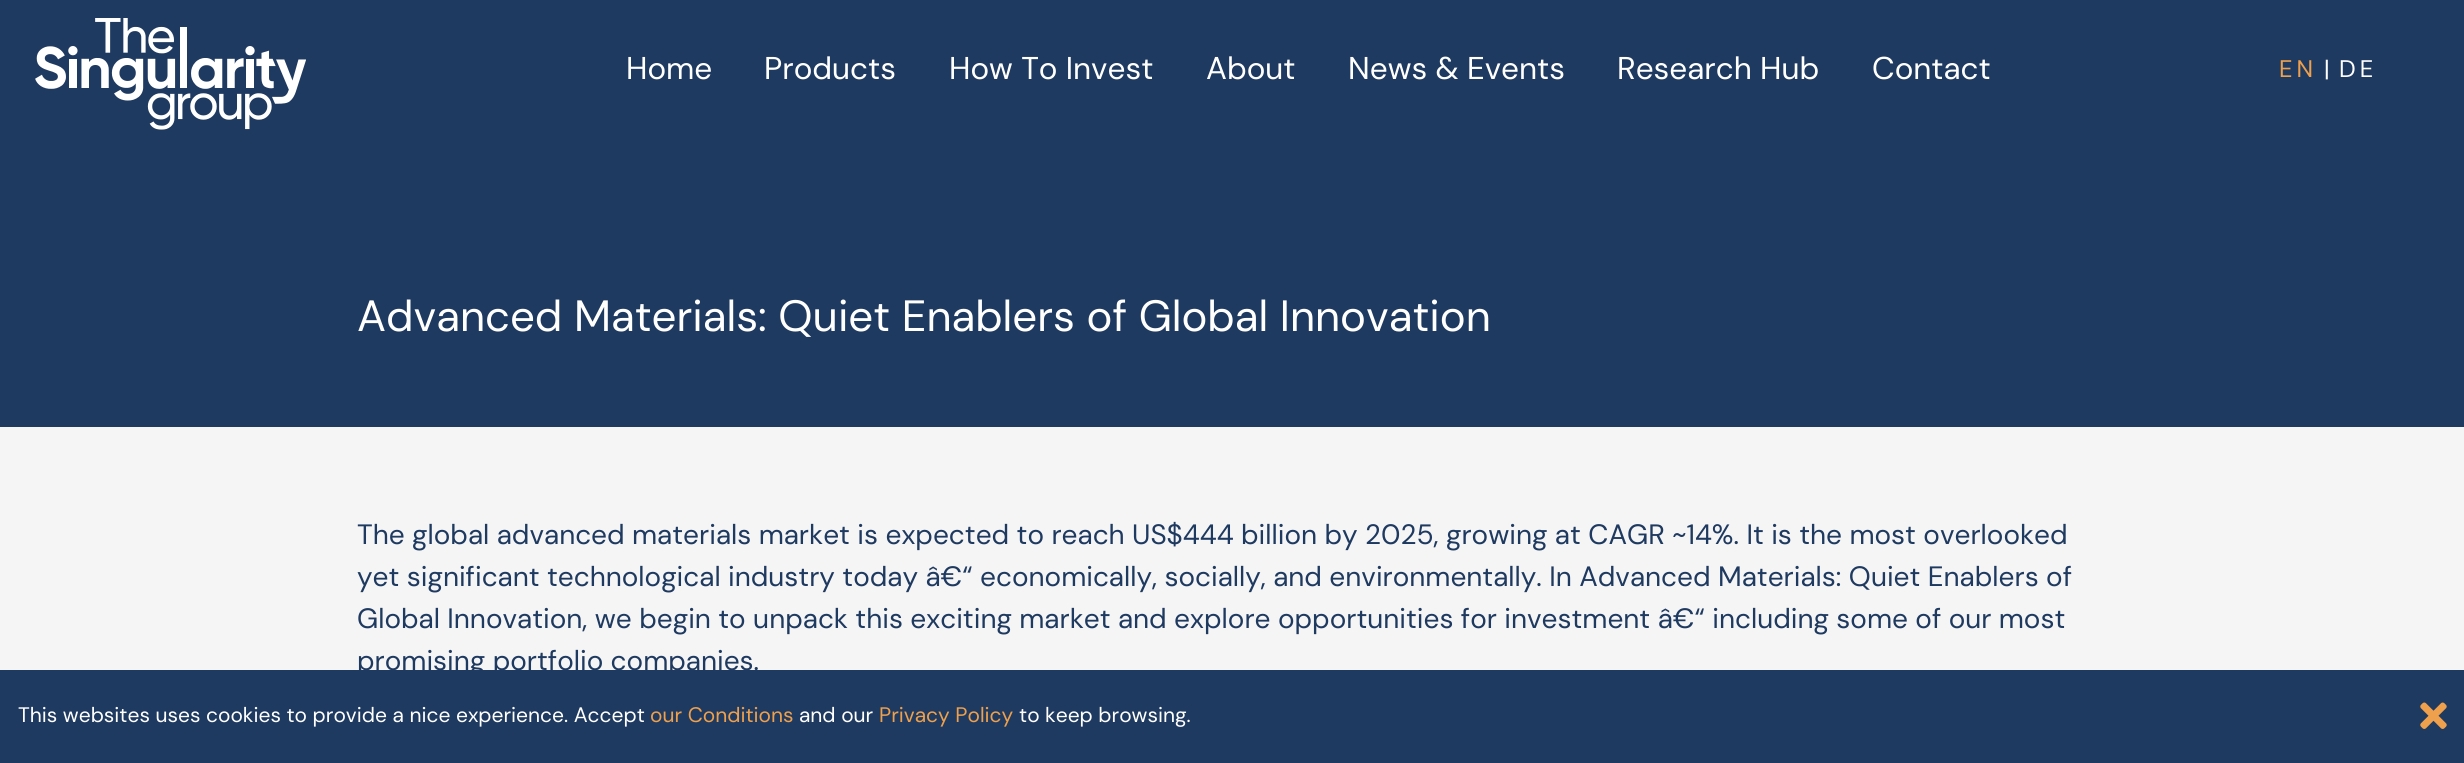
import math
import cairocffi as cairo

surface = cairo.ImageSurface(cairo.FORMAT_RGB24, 2464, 763)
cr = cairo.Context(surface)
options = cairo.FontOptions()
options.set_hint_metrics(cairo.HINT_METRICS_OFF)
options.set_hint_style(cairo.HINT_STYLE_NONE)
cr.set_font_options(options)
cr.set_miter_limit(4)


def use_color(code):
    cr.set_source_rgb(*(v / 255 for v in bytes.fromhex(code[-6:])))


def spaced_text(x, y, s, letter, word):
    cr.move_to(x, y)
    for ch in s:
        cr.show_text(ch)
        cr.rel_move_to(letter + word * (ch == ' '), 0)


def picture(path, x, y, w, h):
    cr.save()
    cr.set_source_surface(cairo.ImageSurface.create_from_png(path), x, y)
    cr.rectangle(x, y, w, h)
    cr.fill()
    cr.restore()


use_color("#1f3a60")
cr.paint()
picture("img1.png", 35, 18, 271, 112)
cr.select_font_face("DM Sans")
cr.set_font_size(31.5)
use_color("#ffffff")
cr.move_to(626, 79)
cr.show_text("Home")
cr.move_to(764, 79)
cr.show_text("Products")
cr.move_to(949, 79)
cr.show_text("How To Invest")
cr.move_to(1206, 79)
cr.show_text("About")
cr.move_to(1348, 79)
cr.show_text("News & Events")
cr.move_to(1617, 79)
cr.show_text("Research Hub")
cr.move_to(1872, 79)
cr.show_text("Contact")
cr.set_font_size(24)
use_color("#eea04d")
spaced_text(2279, 77, "EN", 4, 0)
use_color("#ffffff")
cr.move_to(2324, 77)
cr.show_text("|")
spaced_text(2339, 77, "DE", 4, 0)
cr.set_font_size(43.75)
cr.move_to(357, 331)
cr.show_text("Advanced Materials: Quiet Enablers of Global Innovation")
use_color("#f5f5f5")
cr.rectangle(0, 427, 2464, 243)
cr.fill()
cr.set_font_size(28)
use_color("#1f3a60")
cr.move_to(357, 544)
cr.show_text("The global advanced materials market is expected to reach US$444 billion by 2025, growing at CAGR ~14%. It is the most overlooked")
cr.move_to(357, 586)
cr.show_text("yet significant technological industry today â€“ economically, socially, and environmentally. In Advanced Materials: Quiet Enablers of")
cr.move_to(357, 628)
cr.show_text("Global Innovation, we begin to unpack this exciting market and explore opportunities for investment â€“ including some of our most")
cr.move_to(357, 670)
cr.show_text("promising portfolio companies.")
cr.set_font_size(21)
use_color("#ffffff")
cr.move_to(18, 722)
cr.show_text("This websites uses cookies to provide a nice experience. Accept")
use_color("#eea04d")
cr.move_to(650, 722)
cr.show_text("our Conditions")
use_color("#ffffff")
cr.move_to(799, 722)
cr.show_text("and our")
use_color("#eea04d")
cr.move_to(879, 722)
cr.show_text("Privacy Policy")
use_color("#ffffff")
cr.move_to(1019, 722)
cr.show_text("to keep browsing.")
picture("img2.png", 2420, 702, 27, 27)
surface.write_to_png("result.png")
